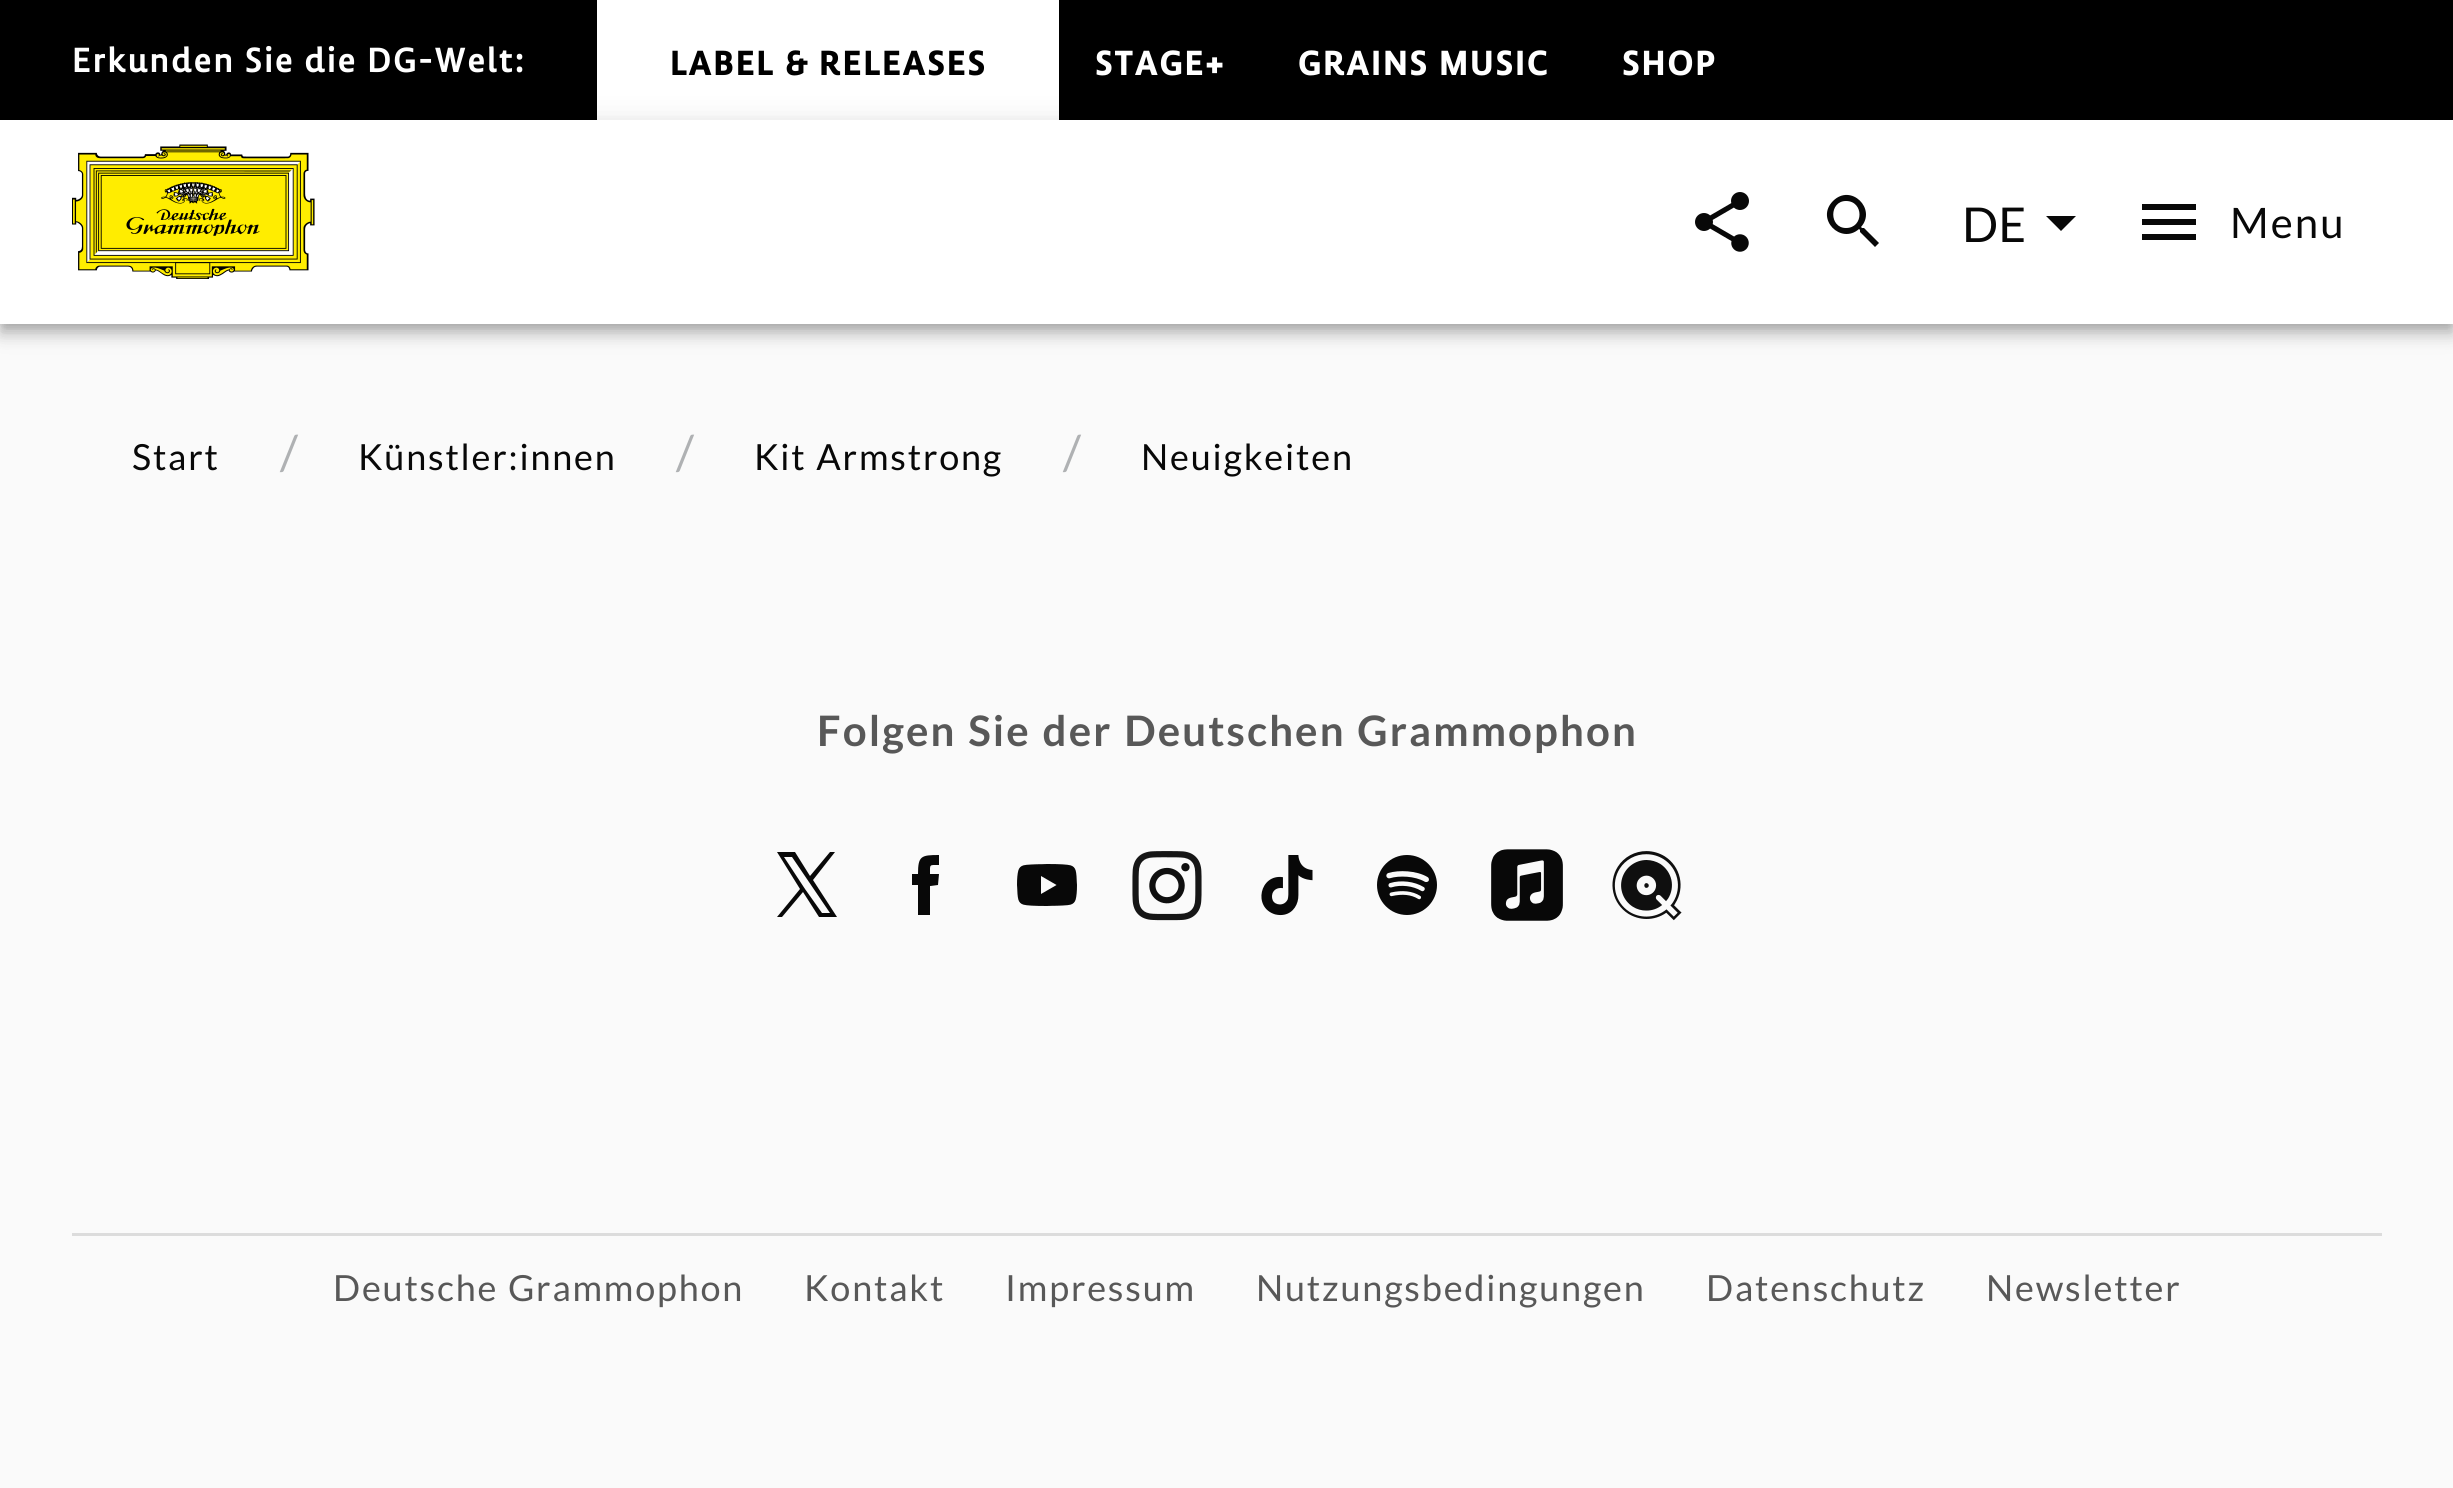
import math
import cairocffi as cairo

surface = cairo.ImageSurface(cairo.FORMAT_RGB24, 2453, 1488)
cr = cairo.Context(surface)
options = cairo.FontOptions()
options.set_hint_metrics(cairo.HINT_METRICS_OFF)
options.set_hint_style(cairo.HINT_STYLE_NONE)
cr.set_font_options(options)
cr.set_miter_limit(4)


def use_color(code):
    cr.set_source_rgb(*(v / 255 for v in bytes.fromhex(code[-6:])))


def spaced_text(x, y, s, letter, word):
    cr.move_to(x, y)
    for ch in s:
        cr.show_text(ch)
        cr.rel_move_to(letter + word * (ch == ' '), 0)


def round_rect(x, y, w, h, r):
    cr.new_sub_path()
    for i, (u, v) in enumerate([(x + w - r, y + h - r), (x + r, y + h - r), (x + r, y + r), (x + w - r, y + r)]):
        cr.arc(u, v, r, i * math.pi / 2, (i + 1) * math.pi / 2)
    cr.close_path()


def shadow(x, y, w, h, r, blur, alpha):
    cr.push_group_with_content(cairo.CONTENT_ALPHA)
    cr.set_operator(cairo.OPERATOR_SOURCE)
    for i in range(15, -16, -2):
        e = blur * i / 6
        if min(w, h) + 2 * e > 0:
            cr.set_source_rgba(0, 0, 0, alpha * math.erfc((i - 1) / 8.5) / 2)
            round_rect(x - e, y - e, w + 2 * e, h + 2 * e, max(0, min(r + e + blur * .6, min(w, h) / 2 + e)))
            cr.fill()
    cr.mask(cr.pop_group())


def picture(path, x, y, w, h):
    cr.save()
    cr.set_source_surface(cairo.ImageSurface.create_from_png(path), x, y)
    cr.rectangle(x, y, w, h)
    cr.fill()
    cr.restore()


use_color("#fafafa")
cr.paint()
use_color("#000000")
cr.rectangle(0, 0, 2453, 120)
cr.fill()
cr.select_font_face("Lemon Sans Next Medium")
cr.set_font_size(36)
use_color("#ffffff")
spaced_text(72, 72, "Erkunden Sie die DG-Welt:", 1.8, 0)
cr.rectangle(597, 0, 462, 120)
cr.fill()
cr.select_font_face("Lemon Sans Next", cairo.FONT_SLANT_NORMAL, cairo.FONT_WEIGHT_BOLD)
use_color("#000000")
spaced_text(670, 75, "LABEL & RELEASES", 1.8, 0)
use_color("#ffffff")
spaced_text(1095, 75, "STAGE+", 1.8, 0)
spaced_text(1298, 75, "GRAINS MUSIC", 1.8, 0)
spaced_text(1622, 75, "SHOP", 1.8, 0)
use_color("#000000")
shadow(0, 123, 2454, 204, 0, 15, 0.12)
shadow(0, 132, 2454, 204, 0, 7.5, 0.14)
shadow(3, 129, 2448, 198, 0, 6, 0.2)
use_color("#ffffff")
cr.rectangle(0, 120, 2453, 204)
cr.fill()
picture("img1.png", 72, 144, 243, 135)
picture("img2.png", 1695, 192, 54, 60)
use_color("#080808")
cr.new_path()
cr.move_to(1864, 228)
cr.line_to(1862, 228)
cr.line_to(1861, 227)
cr.curve_to(1877, 209, 1851, 183, 1833, 201)
cr.curve_to(1815, 219, 1841, 245, 1859, 229)
cr.line_to(1860, 230)
cr.line_to(1860, 232)
cr.line_to(1875, 247)
cr.line_to(1879, 243)
cr.close_path()
cr.move_to(1846, 228)
cr.curve_to(1829, 228, 1829, 201, 1846, 201)
cr.curve_to(1864, 201, 1864, 228, 1846, 228)
cr.fill()
cr.select_font_face("Lato")
cr.set_font_size(48)
cr.move_to(1962, 242)
cr.show_text("DE")
cr.new_path()
cr.move_to(2046, 216)
cr.line_to(2061, 231)
cr.line_to(2076, 216)
cr.close_path()
cr.fill()
cr.new_path()
cr.move_to(2142, 240)
cr.line_to(2196, 240)
cr.line_to(2196, 234)
cr.line_to(2142, 234)
cr.close_path()
cr.move_to(2142, 225)
cr.line_to(2196, 225)
cr.line_to(2196, 219)
cr.line_to(2142, 219)
cr.close_path()
cr.move_to(2142, 204)
cr.line_to(2142, 210)
cr.line_to(2196, 210)
cr.line_to(2196, 204)
cr.close_path()
cr.fill()
cr.set_font_size(42)
spaced_text(2230, 238, "Menu", 2.1, 0)
cr.set_font_size(36)
spaced_text(132, 470, "Start", 1.8, 0)
cr.set_font_size(48)
use_color("#afb1b3")
cr.move_to(280, 470)
cr.show_text("/")
cr.set_font_size(36)
use_color("#080808")
spaced_text(358, 470, "Künstler:innen", 1.8, 0)
cr.set_font_size(48)
use_color("#afb1b3")
cr.move_to(676, 470)
cr.show_text("/")
cr.set_font_size(36)
use_color("#080808")
spaced_text(754, 470, "Kit Armstrong", 1.8, 1)
cr.set_font_size(48)
use_color("#afb1b3")
cr.move_to(1063, 470)
cr.show_text("/")
cr.set_font_size(36)
use_color("#080808")
spaced_text(1141, 470, "Neuigkeiten", 1.8, 0)
cr.select_font_face("Lato", cairo.FONT_SLANT_NORMAL, cairo.FONT_WEIGHT_BOLD)
cr.set_font_size(42)
use_color("#585858")
spaced_text(817, 746, "Folgen Sie der Deutschen Grammophon", 2.1, 1.5)
use_color("#080808")
cr.new_path()
cr.move_to(813, 880)
cr.line_to(835, 852)
cr.line_to(830, 852)
cr.line_to(810, 876)
cr.line_to(795, 852)
cr.line_to(777, 852)
cr.line_to(800, 889)
cr.line_to(777, 917)
cr.line_to(782, 917)
cr.line_to(803, 892)
cr.line_to(819, 917)
cr.line_to(837, 917)
cr.close_path()
cr.move_to(805, 889)
cr.line_to(784, 857)
cr.line_to(792, 857)
cr.line_to(830, 913)
cr.line_to(822, 913)
cr.close_path()
cr.fill()
cr.new_path()
cr.move_to(930, 874)
cr.curve_to(930, 864, 929, 865, 939, 865)
cr.line_to(939, 855)
cr.curve_to(921, 855, 918, 856, 918, 874)
cr.line_to(912, 874)
cr.line_to(912, 885)
cr.line_to(918, 885)
cr.line_to(918, 915)
cr.line_to(930, 915)
cr.line_to(930, 886)
cr.line_to(938, 885)
cr.line_to(939, 874)
cr.close_path()
cr.fill()
picture("img3.png", 1017, 864, 60, 42)
picture("img4.png", 1132, 851, 70, 70)
picture("img5.png", 1261, 855, 52, 61)
picture("img6.png", 1377, 855, 60, 60)
picture("img7.png", 1491, 849, 72, 72)
picture("img8.png", 1612, 851, 70, 70)
use_color("#dcdcdc")
cr.rectangle(72, 1233, 2310, 3)
cr.fill()
cr.select_font_face("Lato")
cr.set_font_size(36)
use_color("#585858")
spaced_text(333, 1301, "Deutsche Grammophon", 1.8, 1)
spaced_text(804, 1301, "Kontakt", 1.8, 0)
spaced_text(1005, 1301, "Impressum", 1.8, 0)
spaced_text(1256, 1301, "Nutzungsbedingungen", 1.8, 0)
spaced_text(1706, 1301, "Datenschutz", 1.8, 0)
spaced_text(1986, 1301, "Newsletter", 1.8, 0)
surface.write_to_png("result.png")
